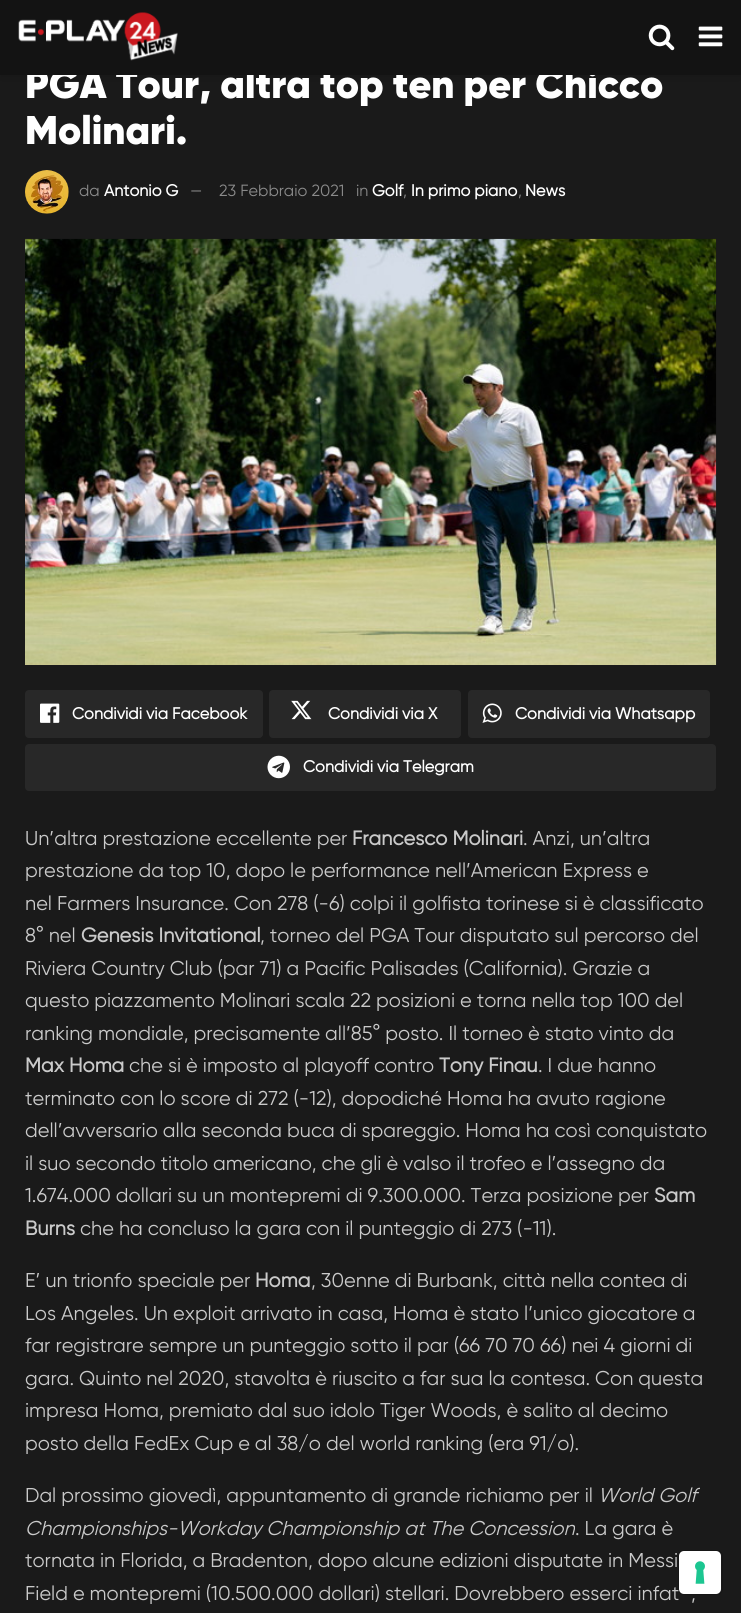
import math
import cairocffi as cairo

surface = cairo.ImageSurface(cairo.FORMAT_RGB24, 741, 1613)
cr = cairo.Context(surface)
options = cairo.FontOptions()
options.set_hint_metrics(cairo.HINT_METRICS_OFF)
options.set_hint_style(cairo.HINT_STYLE_NONE)
cr.set_font_options(options)
cr.set_miter_limit(4)


def use_color(code):
    cr.set_source_rgb(*(v / 255 for v in bytes.fromhex(code[-6:])))


def round_rect(x, y, w, h, r):
    cr.new_sub_path()
    for i, (u, v) in enumerate([(x + w - r, y + h - r), (x + r, y + h - r), (x + r, y + r), (x + w - r, y + r)]):
        cr.arc(u, v, r, i * math.pi / 2, (i + 1) * math.pi / 2)
    cr.close_path()


def shadow(x, y, w, h, r, blur, alpha):
    cr.push_group_with_content(cairo.CONTENT_ALPHA)
    cr.set_operator(cairo.OPERATOR_SOURCE)
    for i in range(15, -16, -2):
        e = blur * i / 6
        if min(w, h) + 2 * e > 0:
            cr.set_source_rgba(0, 0, 0, alpha * math.erfc((i - 1) / 8.5) / 2)
            round_rect(x - e, y - e, w + 2 * e, h + 2 * e, max(0, min(r + e + blur * .6, min(w, h) / 2 + e)))
            cr.fill()
    cr.mask(cr.pop_group())


def picture(path, x, y, w, h):
    cr.save()
    cr.set_source_surface(cairo.ImageSurface.create_from_png(path), x, y)
    cr.rectangle(x, y, w, h)
    cr.fill()
    cr.restore()


use_color("#1a1a1a")
cr.paint()
use_color("#000000")
shadow(0, 3, 741, 75, 0, 4, 0.1)
cr.select_font_face("Gilroy Black")
cr.set_font_size(40)
use_color("#ffffff")
cr.move_to(25, 98)
cr.show_text("PGA Tour, altra top ten per Chicco")
use_color("#131313")
cr.rectangle(0, 0, 741, 75)
cr.fill()
picture("img1.png", 18, 12, 160, 49)
picture("img2.png", 648, 24, 27, 27)
picture("img3.png", 698, 26, 25, 21)
use_color("#ffffff")
cr.move_to(25, 144)
cr.show_text("Molinari.")
picture("img4.png", 25, 170, 44, 44)
cr.select_font_face("Gilroy")
cr.set_font_size(16.25)
use_color("#8b8b8b")
cr.move_to(79, 196)
cr.show_text("da")
cr.select_font_face("Gilroy", cairo.FONT_SLANT_NORMAL, cairo.FONT_WEIGHT_BOLD)
use_color("#ffffff")
cr.move_to(104, 196)
cr.show_text("Antonio G")
cr.select_font_face("Gilroy")
use_color("#8b8b8b")
cr.move_to(190, 196)
cr.show_text("—")
cr.move_to(219, 196)
cr.show_text("23 Febbraio 2021")
cr.move_to(356, 196)
cr.show_text("in")
cr.select_font_face("Gilroy", cairo.FONT_SLANT_NORMAL, cairo.FONT_WEIGHT_BOLD)
use_color("#ffffff")
cr.move_to(372, 196)
cr.show_text("Golf")
cr.select_font_face("Gilroy")
use_color("#8b8b8b")
cr.move_to(403, 196)
cr.show_text(",")
cr.select_font_face("Gilroy", cairo.FONT_SLANT_NORMAL, cairo.FONT_WEIGHT_BOLD)
use_color("#ffffff")
cr.move_to(411, 196)
cr.show_text("In primo piano")
cr.select_font_face("Gilroy")
use_color("#8b8b8b")
cr.move_to(518, 196)
cr.show_text(",")
cr.select_font_face("Gilroy", cairo.FONT_SLANT_NORMAL, cairo.FONT_WEIGHT_BOLD)
use_color("#ffffff")
cr.move_to(525, 196)
cr.show_text("News")
picture("img5.png", 25, 238, 692, 427)
use_color("#282828")
round_rect(25, 690, 238, 48, 4)
cr.fill()
picture("img6.png", 40, 703, 20, 20)
use_color("#ffffff")
cr.move_to(72, 719)
cr.show_text("Condividi via Facebook")
use_color("#282828")
round_rect(269, 690, 192, 48, 4)
cr.fill()
picture("img7.png", 291, 700, 21, 20)
use_color("#ffffff")
cr.move_to(328, 719)
cr.show_text("Condividi via X")
use_color("#282828")
round_rect(468, 690, 242, 48, 4)
cr.fill()
picture("img8.png", 482, 703, 20, 20)
use_color("#ffffff")
cr.move_to(515, 719)
cr.show_text("Condividi via Whatsapp")
use_color("#282828")
round_rect(25, 744, 691, 47, 4)
cr.fill()
picture("img9.png", 267, 755, 23, 24)
use_color("#ffffff")
cr.move_to(303, 772)
cr.show_text("Condividi via Telegram")
cr.select_font_face("Gilroy")
cr.set_font_size(20)
use_color("#cacaca")
cr.move_to(25, 845)
cr.show_text("Un’altra prestazione eccellente per")
cr.select_font_face("Gilroy", cairo.FONT_SLANT_NORMAL, cairo.FONT_WEIGHT_BOLD)
cr.move_to(352, 845)
cr.show_text("Francesco Molinari")
cr.select_font_face("Gilroy")
cr.move_to(523, 845)
cr.show_text(". Anzi, un’altra")
cr.move_to(25, 877)
cr.show_text("prestazione da top 10, dopo le performance nell’American Express e")
cr.move_to(25, 910)
cr.show_text("nel Farmers Insurance. Con 278 (-6) colpi il golfista torinese si è classificato")
cr.move_to(25, 942)
cr.show_text("8° nel")
cr.select_font_face("Gilroy", cairo.FONT_SLANT_NORMAL, cairo.FONT_WEIGHT_BOLD)
cr.move_to(81, 942)
cr.show_text("Genesis Invitational")
cr.select_font_face("Gilroy")
cr.move_to(260, 942)
cr.show_text(", torneo del PGA Tour disputato sul percorso del")
cr.move_to(25, 975)
cr.show_text("Riviera Country Club (par 71) a Pacific Palisades (California). Grazie a")
cr.move_to(25, 1007)
cr.show_text("questo piazzamento Molinari scala 22 posizioni e torna nella top 100 del")
cr.move_to(25, 1040)
cr.show_text("ranking mondiale, precisamente all’85° posto. Il torneo è stato vinto da")
cr.select_font_face("Gilroy", cairo.FONT_SLANT_NORMAL, cairo.FONT_WEIGHT_BOLD)
cr.move_to(25, 1072)
cr.show_text("Max Homa")
cr.select_font_face("Gilroy")
cr.move_to(129, 1072)
cr.show_text("che si è imposto al playoff contro")
cr.select_font_face("Gilroy", cairo.FONT_SLANT_NORMAL, cairo.FONT_WEIGHT_BOLD)
cr.move_to(439, 1072)
cr.show_text("Tony Finau")
cr.select_font_face("Gilroy")
cr.move_to(538, 1072)
cr.show_text(". I due hanno")
cr.move_to(25, 1105)
cr.show_text("terminato con lo score di 272 (-12), dopodiché Homa ha avuto ragione")
cr.move_to(25, 1137)
cr.show_text("dell’avversario alla seconda buca di spareggio. Homa ha così conquistato")
cr.move_to(25, 1170)
cr.show_text("il suo secondo titolo americano, che gli è valso il trofeo e l’assegno da")
cr.move_to(25, 1202)
cr.show_text("1.674.000 dollari su un montepremi di 9.300.000. Terza posizione per")
cr.select_font_face("Gilroy", cairo.FONT_SLANT_NORMAL, cairo.FONT_WEIGHT_BOLD)
cr.move_to(654, 1202)
cr.show_text("Sam")
cr.move_to(25, 1235)
cr.show_text("Burns")
cr.select_font_face("Gilroy")
cr.move_to(80, 1235)
cr.show_text("che ha concluso la gara con il punteggio di 273 (-11).")
cr.move_to(25, 1287)
cr.show_text("E’ un trionfo speciale per")
cr.select_font_face("Gilroy", cairo.FONT_SLANT_NORMAL, cairo.FONT_WEIGHT_BOLD)
cr.move_to(255, 1287)
cr.show_text("Homa")
cr.select_font_face("Gilroy")
cr.move_to(311, 1287)
cr.show_text(", 30enne di Burbank, città nella contea di")
cr.move_to(25, 1320)
cr.show_text("Los Angeles. Un exploit arrivato in casa, Homa è stato l’unico giocatore a")
cr.move_to(25, 1352)
cr.show_text("far registrare sempre un punteggio sotto il par (66 70 70 66) nei 4 giorni di")
cr.move_to(25, 1385)
cr.show_text("gara. Quinto nel 2020, stavolta è riuscito a far sua la contesa. Con questa")
cr.move_to(25, 1417)
cr.show_text("impresa Homa, premiato dal suo idolo Tiger Woods, è salito al decimo")
cr.move_to(25, 1450)
cr.show_text("posto della FedEx Cup e al 38/o del world ranking (era 91/o).")
cr.move_to(25, 1502)
cr.show_text("Dal prossimo giovedì, appuntamento di grande richiamo per il")
cr.select_font_face("Gilroy", cairo.FONT_SLANT_ITALIC)
cr.move_to(598, 1502)
cr.show_text("World Golf")
cr.move_to(25, 1535)
cr.show_text("Championships-Workday Championship at The Concession")
cr.select_font_face("Gilroy")
cr.move_to(575, 1535)
cr.show_text(". La gara è")
cr.move_to(25, 1567)
cr.show_text("tornata in Florida, a Bradenton, dopo alcune edizioni disputate in Messi")
cr.move_to(25, 1600)
cr.show_text("Field e montepremi (10.500.000 dollari) stellari. Dovrebbero esserci infat")
cr.move_to(691, 1600)
cr.show_text(",")
round_rect(678.5, 1550.5, 44, 44, 5.5)
cr.set_source_rgba(0, 0, 0, 0.15)
cr.set_line_width(1)
cr.stroke()
use_color("#ffffff")
round_rect(679, 1551, 42, 43, 5)
cr.fill()
picture("img10.png", 695, 1561, 10, 23)
surface.write_to_png("result.png")
